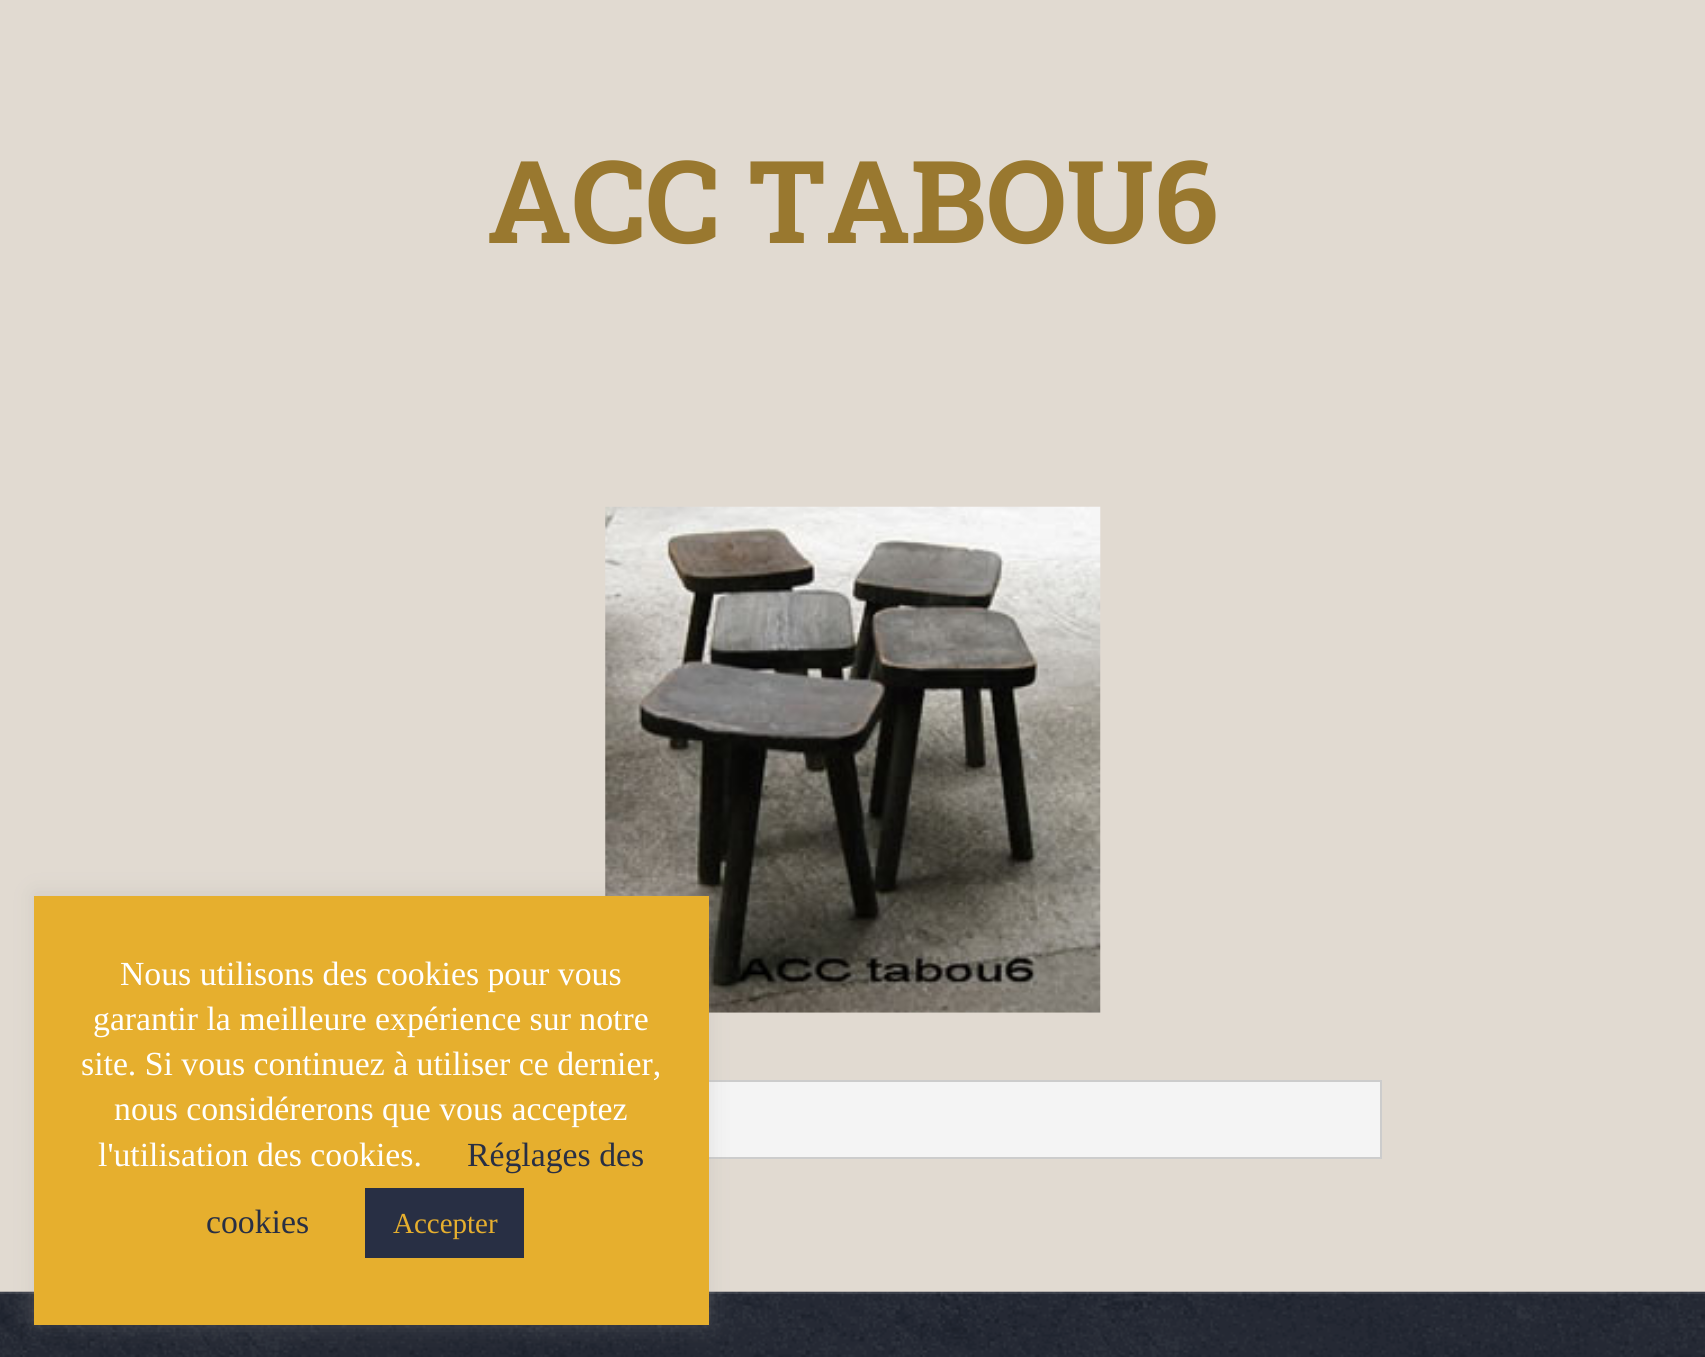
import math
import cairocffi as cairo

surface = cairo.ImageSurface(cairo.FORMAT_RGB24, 1705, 1357)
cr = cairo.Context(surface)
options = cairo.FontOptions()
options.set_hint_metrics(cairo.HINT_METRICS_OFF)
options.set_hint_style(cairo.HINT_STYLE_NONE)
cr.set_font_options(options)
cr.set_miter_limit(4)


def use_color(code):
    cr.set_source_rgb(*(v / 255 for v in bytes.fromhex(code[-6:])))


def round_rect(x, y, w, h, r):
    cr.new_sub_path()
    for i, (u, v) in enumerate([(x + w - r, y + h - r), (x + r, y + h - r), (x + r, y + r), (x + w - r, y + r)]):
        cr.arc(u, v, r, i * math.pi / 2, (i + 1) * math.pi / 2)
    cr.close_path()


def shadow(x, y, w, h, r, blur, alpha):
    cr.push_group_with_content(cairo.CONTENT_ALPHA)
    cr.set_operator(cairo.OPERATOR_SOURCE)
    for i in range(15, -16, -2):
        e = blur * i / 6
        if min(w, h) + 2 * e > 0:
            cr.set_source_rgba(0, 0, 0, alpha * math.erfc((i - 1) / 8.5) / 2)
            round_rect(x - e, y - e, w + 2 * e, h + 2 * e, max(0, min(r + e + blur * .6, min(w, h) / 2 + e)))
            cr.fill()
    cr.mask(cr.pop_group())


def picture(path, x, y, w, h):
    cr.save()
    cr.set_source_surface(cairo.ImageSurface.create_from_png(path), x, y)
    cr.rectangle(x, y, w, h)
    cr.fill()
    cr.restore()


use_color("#e1dad1")
cr.paint()
cr.select_font_face("Roboto Slab", cairo.FONT_SLANT_NORMAL, cairo.FONT_WEIGHT_BOLD)
cr.set_font_size(114.75)
use_color("#99782f")
cr.move_to(487, 243)
cr.show_text("ACC TABOU6")
picture("img1.png", 605, 506, 496, 507)
use_color("#f4f4f4")
cr.rectangle(709, 1082, 671, 75)
cr.fill()
cr.rectangle(325, 1081, 1056, 77)
use_color("#cccccc")
cr.stroke()
picture("img2.png", 0, 1291, 1705, 66)
cr.set_source_rgba(1, 1, 1, 0.1)
cr.rectangle(0, 1292, 1705, 2)
cr.fill()
use_color("#acabab")
shadow(34, 893, 675, 430, 0, 11, 0.3)
use_color("#e6af2e")
cr.rectangle(34, 896, 675, 429)
cr.fill()
cr.select_font_face("Liberation Serif")
cr.set_font_size(33.75)
use_color("#ffffff")
cr.move_to(120, 985)
cr.show_text("Nous utilisons des cookies pour vous")
cr.move_to(93, 1030)
cr.show_text("garantir la meilleure expérience sur notre")
cr.move_to(81, 1075)
cr.show_text("site. Si vous continuez à utiliser ce dernier,")
cr.move_to(114, 1120)
cr.show_text("nous considérerons que vous acceptez")
cr.move_to(98, 1166)
cr.show_text("l'utilisation des cookies.")
use_color("#282f44")
cr.move_to(467, 1166)
cr.show_text("Réglages des")
cr.move_to(206, 1233)
cr.show_text("cookies")
cr.rectangle(365, 1188, 159, 70)
cr.fill()
cr.set_font_size(29)
use_color("#e6af2e")
cr.move_to(393, 1233)
cr.show_text("Accepter")
surface.write_to_png("result.png")
